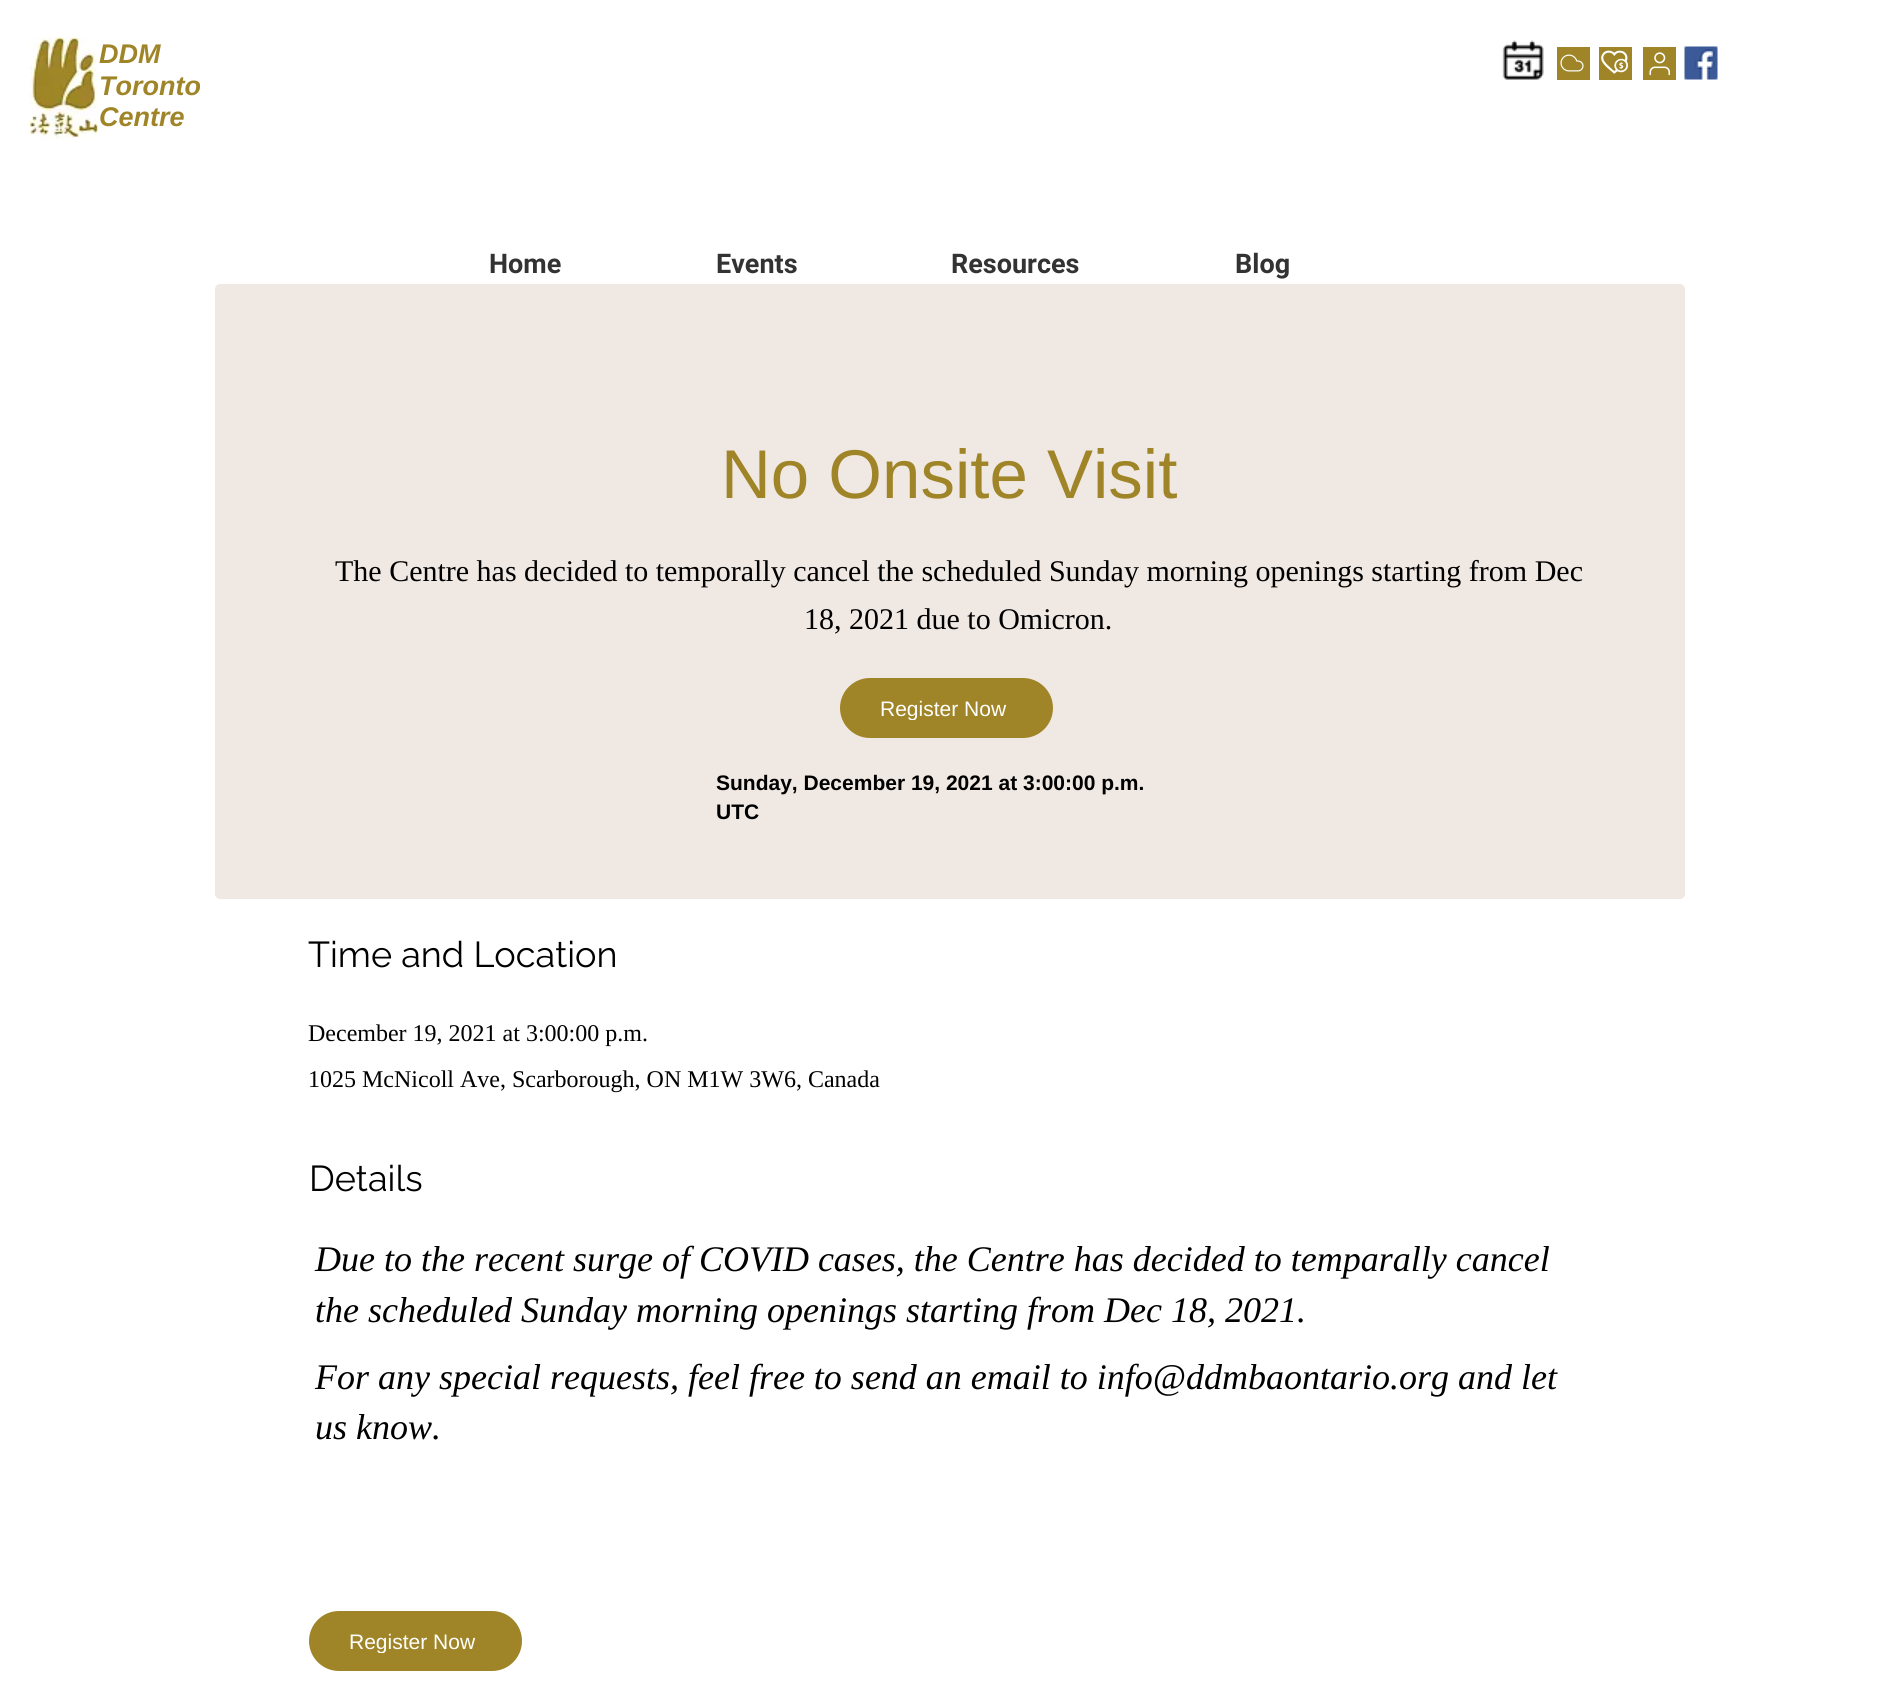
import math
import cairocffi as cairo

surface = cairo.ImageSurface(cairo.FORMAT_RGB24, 1898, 1681)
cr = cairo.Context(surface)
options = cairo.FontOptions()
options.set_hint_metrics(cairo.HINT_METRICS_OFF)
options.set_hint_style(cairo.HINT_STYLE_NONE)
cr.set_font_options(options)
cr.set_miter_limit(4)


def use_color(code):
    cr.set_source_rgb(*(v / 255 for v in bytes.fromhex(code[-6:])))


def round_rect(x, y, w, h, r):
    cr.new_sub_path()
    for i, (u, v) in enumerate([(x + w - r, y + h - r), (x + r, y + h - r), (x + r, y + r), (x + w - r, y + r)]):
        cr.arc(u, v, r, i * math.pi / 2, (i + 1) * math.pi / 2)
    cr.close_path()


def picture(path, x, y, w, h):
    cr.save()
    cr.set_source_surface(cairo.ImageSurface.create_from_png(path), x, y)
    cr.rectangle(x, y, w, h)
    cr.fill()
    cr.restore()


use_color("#ffffff")
cr.paint()
picture("img1.png", 30, 37, 68, 103)
cr.select_font_face("Liberation Sans", cairo.FONT_SLANT_ITALIC, cairo.FONT_WEIGHT_BOLD)
cr.set_font_size(27)
use_color("#9f8528")
cr.move_to(99, 63)
cr.show_text("DDM")
cr.move_to(99, 95)
cr.show_text("Toronto")
cr.move_to(99, 126)
cr.show_text("Centre")
picture("img2.png", 1502, 40, 42, 40)
cr.rectangle(1557, 47, 33, 33)
cr.fill()
picture("img3.png", 1560, 54, 24, 18)
cr.rectangle(1599, 47, 33, 33)
cr.fill()
picture("img4.png", 1601, 50, 27, 24)
cr.rectangle(1643, 47, 33, 33)
cr.fill()
picture("img5.png", 1649, 52, 21, 24)
picture("img6.png", 1684, 46, 34, 34)
cr.select_font_face("Roboto", cairo.FONT_SLANT_NORMAL, cairo.FONT_WEIGHT_BOLD)
use_color("#333333")
cr.move_to(489, 273)
cr.show_text("Home")
cr.move_to(716, 273)
cr.show_text("Events")
cr.move_to(951, 273)
cr.show_text("Resources")
cr.move_to(1235, 273)
cr.show_text("Blog")
use_color("#f0e8e3")
round_rect(215, 284, 1470, 615, 5)
cr.fill()
cr.select_font_face("Liberation Sans")
cr.set_font_size(69)
use_color("#9f8528")
cr.move_to(721, 498)
cr.show_text("No Onsite Visit")
cr.select_font_face("Liberation Serif")
cr.set_font_size(30)
use_color("#000000")
cr.move_to(335, 581)
cr.show_text("The Centre has decided to temporally cancel the scheduled Sunday morning openings starting from Dec")
cr.move_to(804, 629)
cr.show_text("18, 2021 due to Omicron.")
use_color("#9f8528")
round_rect(840, 678, 213, 60, 30)
cr.fill()
cr.save()
cr.rectangle(881, 696, 126, 24)
cr.clip()
cr.select_font_face("Liberation Sans")
cr.set_font_size(21)
use_color("#ffffff")
cr.move_to(880, 716)
cr.show_text("Register Now")
cr.restore()
cr.select_font_face("Liberation Sans", cairo.FONT_SLANT_NORMAL, cairo.FONT_WEIGHT_BOLD)
cr.set_font_size(21)
use_color("#000000")
cr.move_to(716, 790)
cr.show_text("Sunday, December 19, 2021 at 3:00:00 p.m.")
cr.move_to(716, 819)
cr.show_text("UTC")
cr.select_font_face("Raleway")
cr.set_font_size(36)
cr.move_to(308, 967)
cr.show_text("Time and Location")
cr.select_font_face("Liberation Serif")
cr.set_font_size(24)
cr.move_to(308, 1041)
cr.show_text("December 19, 2021 at 3:00:00 p.m.")
cr.move_to(308, 1087)
cr.show_text("1025 McNicoll Ave, Scarborough, ON M1W 3W6, Canada")
cr.select_font_face("Raleway")
cr.set_font_size(36)
cr.move_to(309, 1191)
cr.show_text("Details")
cr.select_font_face("Liberation Serif", cairo.FONT_SLANT_ITALIC)
cr.move_to(315, 1271)
cr.show_text("Due to the recent surge of COVID cases, the Centre has decided to temparally cancel")
cr.move_to(315, 1322)
cr.show_text("the scheduled Sunday morning openings starting from Dec 18, 2021.")
cr.move_to(315, 1389)
cr.show_text("For any special requests, feel free to send an email to info@ddmbaontario.org and let")
cr.move_to(315, 1439)
cr.show_text("us know.")
use_color("#9f8528")
round_rect(309, 1611, 213, 60, 30)
cr.fill()
cr.save()
cr.rectangle(350, 1629, 126, 24)
cr.clip()
cr.select_font_face("Liberation Sans")
cr.set_font_size(21)
use_color("#ffffff")
cr.move_to(349, 1649)
cr.show_text("Register Now")
cr.restore()
surface.write_to_png("result.png")
